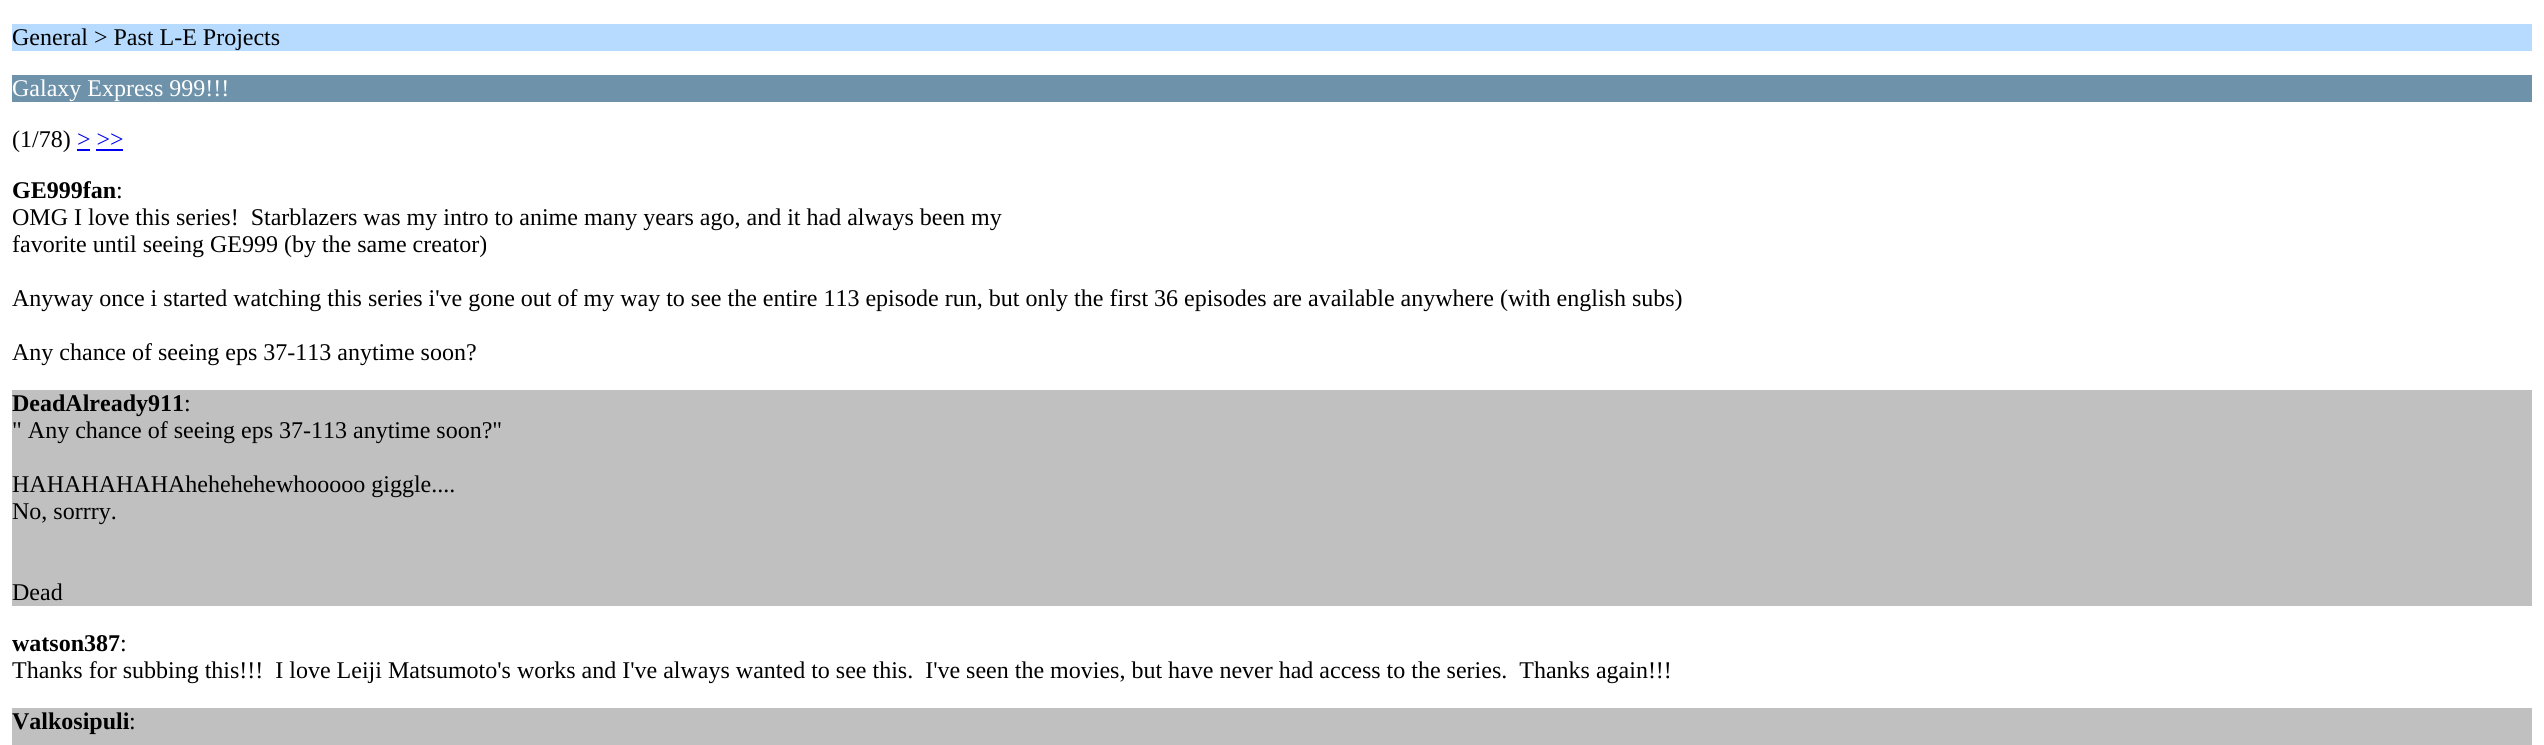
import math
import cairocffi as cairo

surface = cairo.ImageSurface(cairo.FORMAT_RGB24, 2544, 745)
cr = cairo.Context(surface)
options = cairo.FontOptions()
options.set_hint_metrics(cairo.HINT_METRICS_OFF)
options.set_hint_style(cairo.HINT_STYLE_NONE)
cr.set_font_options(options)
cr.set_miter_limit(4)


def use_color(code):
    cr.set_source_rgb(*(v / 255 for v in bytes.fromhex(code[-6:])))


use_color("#ffffff")
cr.paint()
use_color("#b6dbff")
cr.rectangle(12, 24, 2520, 27)
cr.fill()
cr.select_font_face("Liberation Serif")
cr.set_font_size(24)
use_color("#000000")
cr.move_to(12, 45)
cr.show_text("General > Past L-E Projects")
use_color("#6d92aa")
cr.rectangle(12, 75, 2520, 27)
cr.fill()
use_color("#ffffff")
cr.move_to(12, 96)
cr.show_text("Galaxy Express 999!!!")
use_color("#000000")
cr.move_to(12, 147)
cr.show_text("(1/78)")
use_color("#0000ee")
cr.move_to(77, 147)
cr.show_text("> >>")
cr.rectangle(77, 149, 13, 2)
cr.fill()
cr.rectangle(96, 149, 27, 2)
cr.fill()
cr.select_font_face("Liberation Serif", cairo.FONT_SLANT_NORMAL, cairo.FONT_WEIGHT_BOLD)
use_color("#000000")
cr.move_to(12, 198)
cr.show_text("GE999fan")
cr.select_font_face("Liberation Serif")
cr.move_to(116, 198)
cr.show_text(":")
cr.move_to(12, 225)
cr.show_text("OMG I love this series!  Starblazers was my intro to anime many years ago, and it had always been my")
cr.move_to(12, 252)
cr.show_text("favorite until seeing GE999 (by the same creator)")
cr.move_to(12, 306)
cr.show_text("Anyway once i started watching this series i've gone out of my way to see the entire 113 episode run, but only the first 36 episodes are available anywhere (with english subs)")
cr.move_to(12, 360)
cr.show_text("Any chance of seeing eps 37-113 anytime soon?")
use_color("#c0c0c0")
cr.rectangle(12, 390, 2520, 216)
cr.fill()
cr.select_font_face("Liberation Serif", cairo.FONT_SLANT_NORMAL, cairo.FONT_WEIGHT_BOLD)
use_color("#000000")
cr.move_to(12, 411)
cr.show_text("DeadAlready911")
cr.select_font_face("Liberation Serif")
cr.move_to(184, 411)
cr.show_text(":")
cr.move_to(12, 438)
cr.show_text("\" Any chance of seeing eps 37-113 anytime soon?\"")
cr.move_to(12, 492)
cr.show_text("HAHAHAHAHAhehehehewhooooo giggle....")
cr.move_to(12, 519)
cr.show_text("No, sorrry.")
cr.move_to(12, 600)
cr.show_text("Dead")
cr.select_font_face("Liberation Serif", cairo.FONT_SLANT_NORMAL, cairo.FONT_WEIGHT_BOLD)
cr.move_to(12, 651)
cr.show_text("watson387")
cr.select_font_face("Liberation Serif")
cr.move_to(120, 651)
cr.show_text(":")
cr.move_to(12, 678)
cr.show_text("Thanks for subbing this!!!  I love Leiji Matsumoto's works and I've always wanted to see this.  I've seen the movies, but have never had access to the series.  Thanks again!!!")
use_color("#c0c0c0")
cr.rectangle(12, 708, 2520, 37)
cr.fill()
cr.select_font_face("Liberation Serif", cairo.FONT_SLANT_NORMAL, cairo.FONT_WEIGHT_BOLD)
use_color("#000000")
cr.move_to(12, 729)
cr.show_text("Valkosipuli")
cr.select_font_face("Liberation Serif")
cr.move_to(129, 729)
cr.show_text(":")
surface.write_to_png("result.png")
